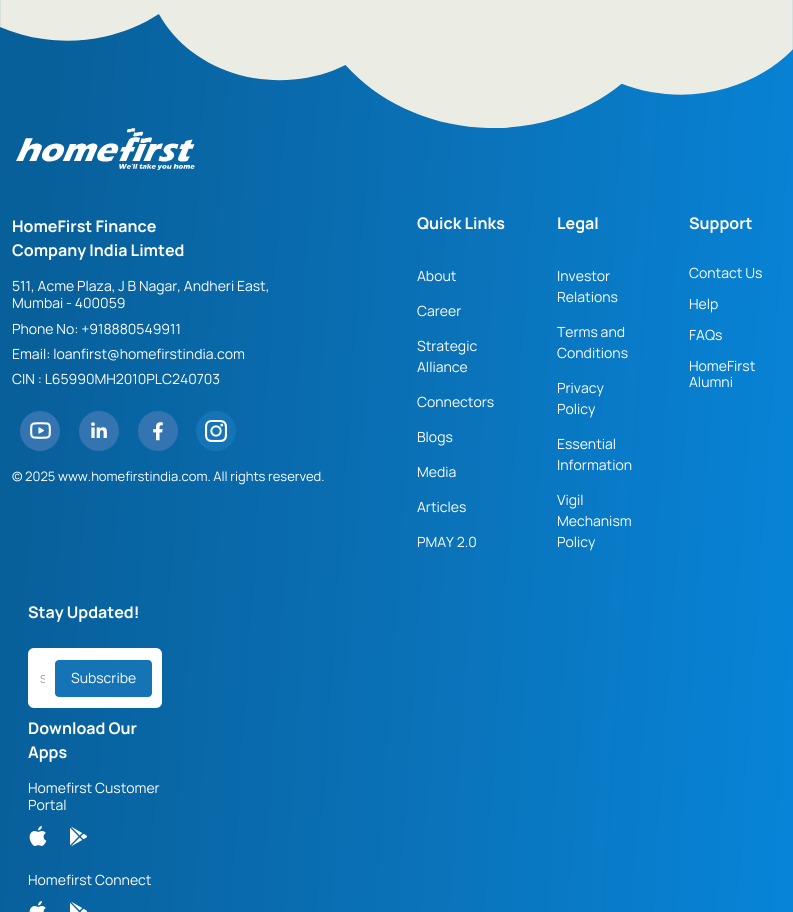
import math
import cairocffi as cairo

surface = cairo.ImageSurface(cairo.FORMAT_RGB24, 793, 912)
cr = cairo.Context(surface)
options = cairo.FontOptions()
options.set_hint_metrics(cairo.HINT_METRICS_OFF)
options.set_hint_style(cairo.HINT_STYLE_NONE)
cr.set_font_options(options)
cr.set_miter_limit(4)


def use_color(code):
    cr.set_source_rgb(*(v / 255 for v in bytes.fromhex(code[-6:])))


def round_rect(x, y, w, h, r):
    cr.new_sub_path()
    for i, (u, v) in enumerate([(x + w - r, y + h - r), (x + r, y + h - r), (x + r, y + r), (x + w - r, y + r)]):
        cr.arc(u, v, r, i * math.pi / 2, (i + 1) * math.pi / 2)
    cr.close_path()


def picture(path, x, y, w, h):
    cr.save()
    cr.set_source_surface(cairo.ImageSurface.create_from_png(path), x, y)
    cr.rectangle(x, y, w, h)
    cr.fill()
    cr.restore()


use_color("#ffffff")
cr.paint()
gradient = cairo.LinearGradient(-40, 565, 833, 625)
gradient.add_color_stop_rgba(0.07, 0.031, 0.376, 0.608, 1)
gradient.add_color_stop_rgba(0.54, 0.039, 0.447, 0.722, 1)
gradient.add_color_stop_rgba(1, 0.027, 0.522, 0.855, 1)
cr.set_source(gradient)
cr.rectangle(0, 0, 793, 912)
cr.fill()
picture("img1.png", 0, 0, 793, 128)
picture("img2.png", 16, 128, 179, 42)
cr.select_font_face("Manrope", cairo.FONT_SLANT_NORMAL, cairo.FONT_WEIGHT_BOLD)
cr.set_font_size(16)
use_color("#ffffff")
cr.move_to(12, 232)
cr.show_text("HomeFirst Finance")
cr.move_to(12, 256)
cr.show_text("Company India Limted")
cr.select_font_face("Manrope")
cr.set_font_size(14)
cr.move_to(12, 291)
cr.show_text("511, Acme Plaza, J B Nagar, Andheri East,")
cr.move_to(12, 308)
cr.show_text("Mumbai - 400059")
cr.move_to(12, 334)
cr.show_text("Phone No: +918880549911")
cr.move_to(12, 359)
cr.show_text("Email: loanfirst@homefirstindia.com")
cr.move_to(12, 384)
cr.show_text("CIN : L65990MH2010PLC240703")
picture("img3.png", 20, 411, 40, 40)
picture("img4.png", 79, 411, 40, 40)
picture("img5.png", 138, 411, 40, 40)
picture("img6.png", 196, 411, 40, 40)
cr.set_font_size(13)
cr.move_to(12, 481)
cr.show_text("© 2025 www.homefirstindia.com. All rights reserved.")
cr.select_font_face("Manrope", cairo.FONT_SLANT_NORMAL, cairo.FONT_WEIGHT_BOLD)
cr.set_font_size(16)
cr.move_to(417, 229)
cr.show_text("Quick Links")
cr.select_font_face("Manrope")
cr.set_font_size(14)
cr.move_to(417, 281)
cr.show_text("About")
cr.move_to(417, 316)
cr.show_text("Career")
cr.move_to(417, 351)
cr.show_text("Strategic")
cr.move_to(417, 372)
cr.show_text("Alliance")
cr.move_to(417, 407)
cr.show_text("Connectors")
cr.move_to(417, 442)
cr.show_text("Blogs")
cr.move_to(417, 477)
cr.show_text("Media")
cr.move_to(417, 512)
cr.show_text("Articles")
cr.move_to(417, 547)
cr.show_text("PMAY 2.0")
cr.select_font_face("Manrope", cairo.FONT_SLANT_NORMAL, cairo.FONT_WEIGHT_BOLD)
cr.set_font_size(16)
cr.move_to(557, 229)
cr.show_text("Legal")
cr.select_font_face("Manrope")
cr.set_font_size(14)
cr.move_to(557, 281)
cr.show_text("Investor")
cr.move_to(557, 302)
cr.show_text("Relations")
cr.move_to(557, 337)
cr.show_text("Terms and")
cr.move_to(557, 358)
cr.show_text("Conditions")
cr.move_to(557, 393)
cr.show_text("Privacy")
cr.move_to(557, 414)
cr.show_text("Policy")
cr.move_to(557, 449)
cr.show_text("Essential")
cr.move_to(557, 470)
cr.show_text("Information")
cr.move_to(557, 505)
cr.show_text("Vigil")
cr.move_to(557, 526)
cr.show_text("Mechanism")
cr.move_to(557, 547)
cr.show_text("Policy")
cr.select_font_face("Manrope", cairo.FONT_SLANT_NORMAL, cairo.FONT_WEIGHT_BOLD)
cr.set_font_size(16)
cr.move_to(689, 229)
cr.show_text("Support")
cr.select_font_face("Manrope")
cr.set_font_size(14)
cr.move_to(689, 278)
cr.show_text("Contact Us")
cr.move_to(689, 309)
cr.show_text("Help")
cr.move_to(689, 340)
cr.show_text("FAQs")
cr.move_to(689, 371)
cr.show_text("HomeFirst")
cr.move_to(689, 387)
cr.show_text("Alumni")
cr.select_font_face("Manrope", cairo.FONT_SLANT_NORMAL, cairo.FONT_WEIGHT_BOLD)
cr.set_font_size(16)
cr.move_to(28, 618)
cr.show_text("Stay Updated!")
round_rect(28, 648, 134, 60, 6)
cr.fill()
cr.save()
cr.rectangle(40, 671, 5, 15)
cr.clip()
cr.select_font_face("Manrope")
cr.set_font_size(11)
use_color("#9c9c9c")
cr.move_to(40, 683)
cr.show_text("S")
cr.restore()
use_color("#1474b6")
round_rect(55, 660, 97, 37, 4)
cr.fill()
cr.select_font_face("Manrope")
cr.set_font_size(14)
use_color("#ffffff")
cr.move_to(71, 683)
cr.show_text("Subscribe")
cr.select_font_face("Manrope", cairo.FONT_SLANT_NORMAL, cairo.FONT_WEIGHT_BOLD)
cr.set_font_size(16)
cr.move_to(28, 734)
cr.show_text("Download Our")
cr.move_to(28, 758)
cr.show_text("Apps")
cr.select_font_face("Manrope")
cr.set_font_size(14)
cr.move_to(28, 793)
cr.show_text("Homefirst Customer")
cr.move_to(28, 810)
cr.show_text("Portal")
picture("img7.png", 29, 826, 18, 20)
picture("img8.png", 70, 827, 17, 19)
cr.move_to(28, 885)
cr.show_text("Homefirst Connect")
picture("img9.png", 29, 901, 17, 11)
picture("img10.png", 70, 902, 17, 10)
surface.write_to_png("result.png")
